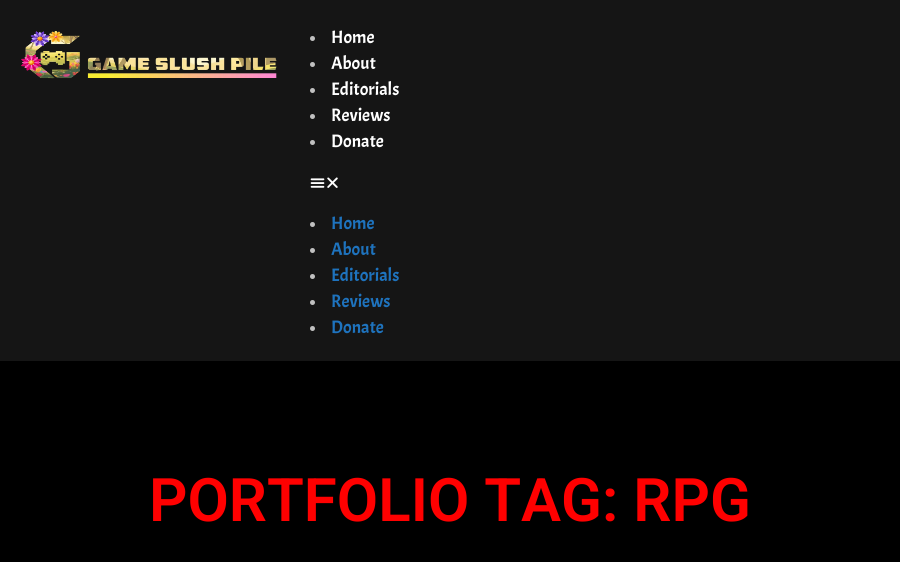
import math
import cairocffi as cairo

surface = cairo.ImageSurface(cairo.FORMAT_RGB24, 900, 562)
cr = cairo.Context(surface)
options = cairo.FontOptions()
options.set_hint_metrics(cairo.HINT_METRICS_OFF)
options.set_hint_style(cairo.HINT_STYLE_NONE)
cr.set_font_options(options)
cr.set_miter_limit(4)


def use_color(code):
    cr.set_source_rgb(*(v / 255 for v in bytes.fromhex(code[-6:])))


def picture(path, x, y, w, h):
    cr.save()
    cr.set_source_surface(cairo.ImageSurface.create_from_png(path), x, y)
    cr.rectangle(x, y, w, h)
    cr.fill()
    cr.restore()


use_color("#151515")
cr.paint()
picture("img1.png", 21, 31, 256, 48)
use_color("#c0c0c0")
cr.arc(312.5, 38.5, 2.5, 0, 2 * math.pi)
cr.fill()
cr.select_font_face("Acme")
cr.set_font_size(18)
use_color("#ffffff")
cr.move_to(331, 43)
cr.show_text("Home")
use_color("#c0c0c0")
cr.new_path()
cr.arc(312.5, 64.5, 2.5, 0, 2 * math.pi)
cr.fill()
use_color("#ffffff")
cr.move_to(331, 69)
cr.show_text("About")
use_color("#c0c0c0")
cr.new_path()
cr.arc(312.5, 90.5, 2.5, 0, 2 * math.pi)
cr.fill()
use_color("#ffffff")
cr.move_to(331, 95)
cr.show_text("Editorials")
use_color("#c0c0c0")
cr.new_path()
cr.arc(312.5, 116.5, 2.5, 0, 2 * math.pi)
cr.fill()
use_color("#ffffff")
cr.move_to(331, 121)
cr.show_text("Reviews")
use_color("#c0c0c0")
cr.new_path()
cr.arc(312.5, 142.5, 2.5, 0, 2 * math.pi)
cr.fill()
use_color("#ffffff")
cr.move_to(331, 147)
cr.show_text("Donate")
picture("img2.png", 310, 178, 15, 10)
picture("img3.png", 327, 177, 11, 11)
use_color("#c0c0c0")
cr.arc(312.5, 224.5, 2.5, 0, 2 * math.pi)
cr.fill()
use_color("#1e73be")
cr.move_to(331, 229)
cr.show_text("Home")
use_color("#c0c0c0")
cr.new_path()
cr.arc(312.5, 250.5, 2.5, 0, 2 * math.pi)
cr.fill()
use_color("#1e73be")
cr.move_to(331, 255)
cr.show_text("About")
use_color("#c0c0c0")
cr.new_path()
cr.arc(312.5, 276.5, 2.5, 0, 2 * math.pi)
cr.fill()
use_color("#1e73be")
cr.move_to(331, 281)
cr.show_text("Editorials")
use_color("#c0c0c0")
cr.new_path()
cr.arc(312.5, 302.5, 2.5, 0, 2 * math.pi)
cr.fill()
use_color("#1e73be")
cr.move_to(331, 307)
cr.show_text("Reviews")
use_color("#c0c0c0")
cr.new_path()
cr.arc(312.5, 328.5, 2.5, 0, 2 * math.pi)
cr.fill()
use_color("#1e73be")
cr.move_to(331, 333)
cr.show_text("Donate")
use_color("#000000")
cr.rectangle(0, 361, 900, 201)
cr.fill()
cr.select_font_face("Roboto SemiBold")
cr.set_font_size(60)
use_color("#ff0000")
cr.move_to(149, 521)
cr.show_text("PORTFOLIO TAG: RPG")
surface.write_to_png("result.png")
